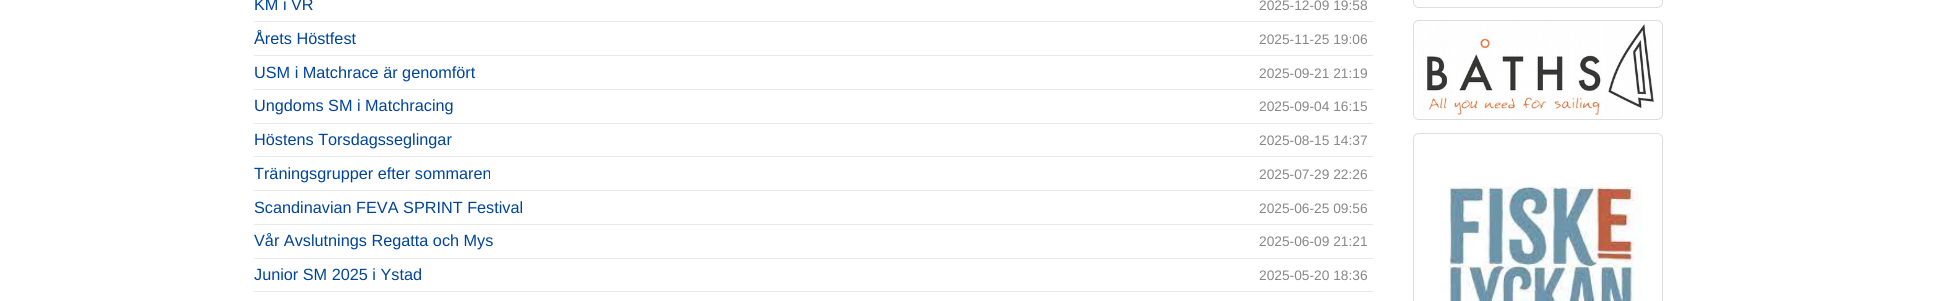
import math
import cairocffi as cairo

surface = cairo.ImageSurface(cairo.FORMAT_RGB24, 1945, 301)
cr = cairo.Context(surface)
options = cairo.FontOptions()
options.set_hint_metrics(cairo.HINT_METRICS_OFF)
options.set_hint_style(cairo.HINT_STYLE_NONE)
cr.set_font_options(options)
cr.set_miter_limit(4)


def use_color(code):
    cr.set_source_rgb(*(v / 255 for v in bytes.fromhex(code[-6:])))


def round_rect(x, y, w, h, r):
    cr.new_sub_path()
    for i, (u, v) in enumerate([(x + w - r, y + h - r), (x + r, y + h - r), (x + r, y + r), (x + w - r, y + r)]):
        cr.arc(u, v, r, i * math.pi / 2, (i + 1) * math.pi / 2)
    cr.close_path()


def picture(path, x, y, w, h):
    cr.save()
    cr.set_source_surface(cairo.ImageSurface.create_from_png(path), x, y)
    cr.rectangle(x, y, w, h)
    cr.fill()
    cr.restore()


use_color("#ffffff")
cr.paint()
cr.select_font_face("Liberation Sans")
cr.set_font_size(16.25)
use_color("#004499")
cr.move_to(254, 10)
cr.show_text("KM i VR")
cr.set_font_size(13.75)
use_color("#888888")
cr.move_to(1259, 10)
cr.show_text("2025-12-09 19:58")
use_color("#e8e8e8")
cr.rectangle(254, 21, 1119, 1)
cr.fill()
cr.set_font_size(16.25)
use_color("#004499")
cr.move_to(254, 44)
cr.show_text("Årets Höstfest")
cr.set_font_size(13.75)
use_color("#888888")
cr.move_to(1259, 44)
cr.show_text("2025-11-25 19:06")
use_color("#e8e8e8")
cr.rectangle(254, 55, 1119, 1)
cr.fill()
cr.set_font_size(16.25)
use_color("#004499")
cr.move_to(254, 78)
cr.show_text("USM i Matchrace är genomfört")
cr.set_font_size(13.75)
use_color("#888888")
cr.move_to(1259, 78)
cr.show_text("2025-09-21 21:19")
use_color("#e8e8e8")
cr.rectangle(254, 89, 1119, 1)
cr.fill()
cr.set_font_size(16.25)
use_color("#004499")
cr.move_to(254, 111)
cr.show_text("Ungdoms SM i Matchracing")
cr.set_font_size(13.75)
use_color("#888888")
cr.move_to(1259, 111)
cr.show_text("2025-09-04 16:15")
use_color("#e8e8e8")
cr.rectangle(254, 123, 1119, 1)
cr.fill()
cr.set_font_size(16.25)
use_color("#004499")
cr.move_to(254, 145)
cr.show_text("Höstens Torsdagsseglingar")
cr.set_font_size(13.75)
use_color("#888888")
cr.move_to(1259, 145)
cr.show_text("2025-08-15 14:37")
use_color("#e8e8e8")
cr.rectangle(254, 156, 1119, 1)
cr.fill()
cr.set_font_size(16.25)
use_color("#004499")
cr.move_to(254, 179)
cr.show_text("Träningsgrupper efter sommaren")
cr.set_font_size(13.75)
use_color("#888888")
cr.move_to(1259, 179)
cr.show_text("2025-07-29 22:26")
use_color("#e8e8e8")
cr.rectangle(254, 190, 1119, 1)
cr.fill()
cr.set_font_size(16.25)
use_color("#004499")
cr.move_to(254, 213)
cr.show_text("Scandinavian FEVA SPRINT Festival")
cr.set_font_size(13.75)
use_color("#888888")
cr.move_to(1259, 213)
cr.show_text("2025-06-25 09:56")
use_color("#e8e8e8")
cr.rectangle(254, 224, 1119, 1)
cr.fill()
cr.set_font_size(16.25)
use_color("#004499")
cr.move_to(254, 246)
cr.show_text("Vår Avslutnings Regatta och Mys")
cr.set_font_size(13.75)
use_color("#888888")
cr.move_to(1259, 246)
cr.show_text("2025-06-09 21:21")
use_color("#e8e8e8")
cr.rectangle(254, 258, 1119, 1)
cr.fill()
cr.set_font_size(16.25)
use_color("#004499")
cr.move_to(254, 280)
cr.show_text("Junior SM 2025 i Ystad")
cr.set_font_size(13.75)
use_color("#888888")
cr.move_to(1259, 280)
cr.show_text("2025-05-20 18:36")
use_color("#e8e8e8")
cr.rectangle(254, 291, 1119, 1)
cr.fill()
round_rect(1413.5, -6.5, 249, 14, 5.5)
use_color("#dddddd")
cr.set_line_width(1)
cr.stroke()
round_rect(1413.5, 20.5, 249, 99, 5.5)
cr.stroke()
picture("img1.png", 1414, 23, 242, 96)
round_rect(1413.5, 133.5, 249, 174, 5.5)
cr.stroke()
picture("img2.png", 1414, 137, 229, 164)
surface.write_to_png("result.png")
